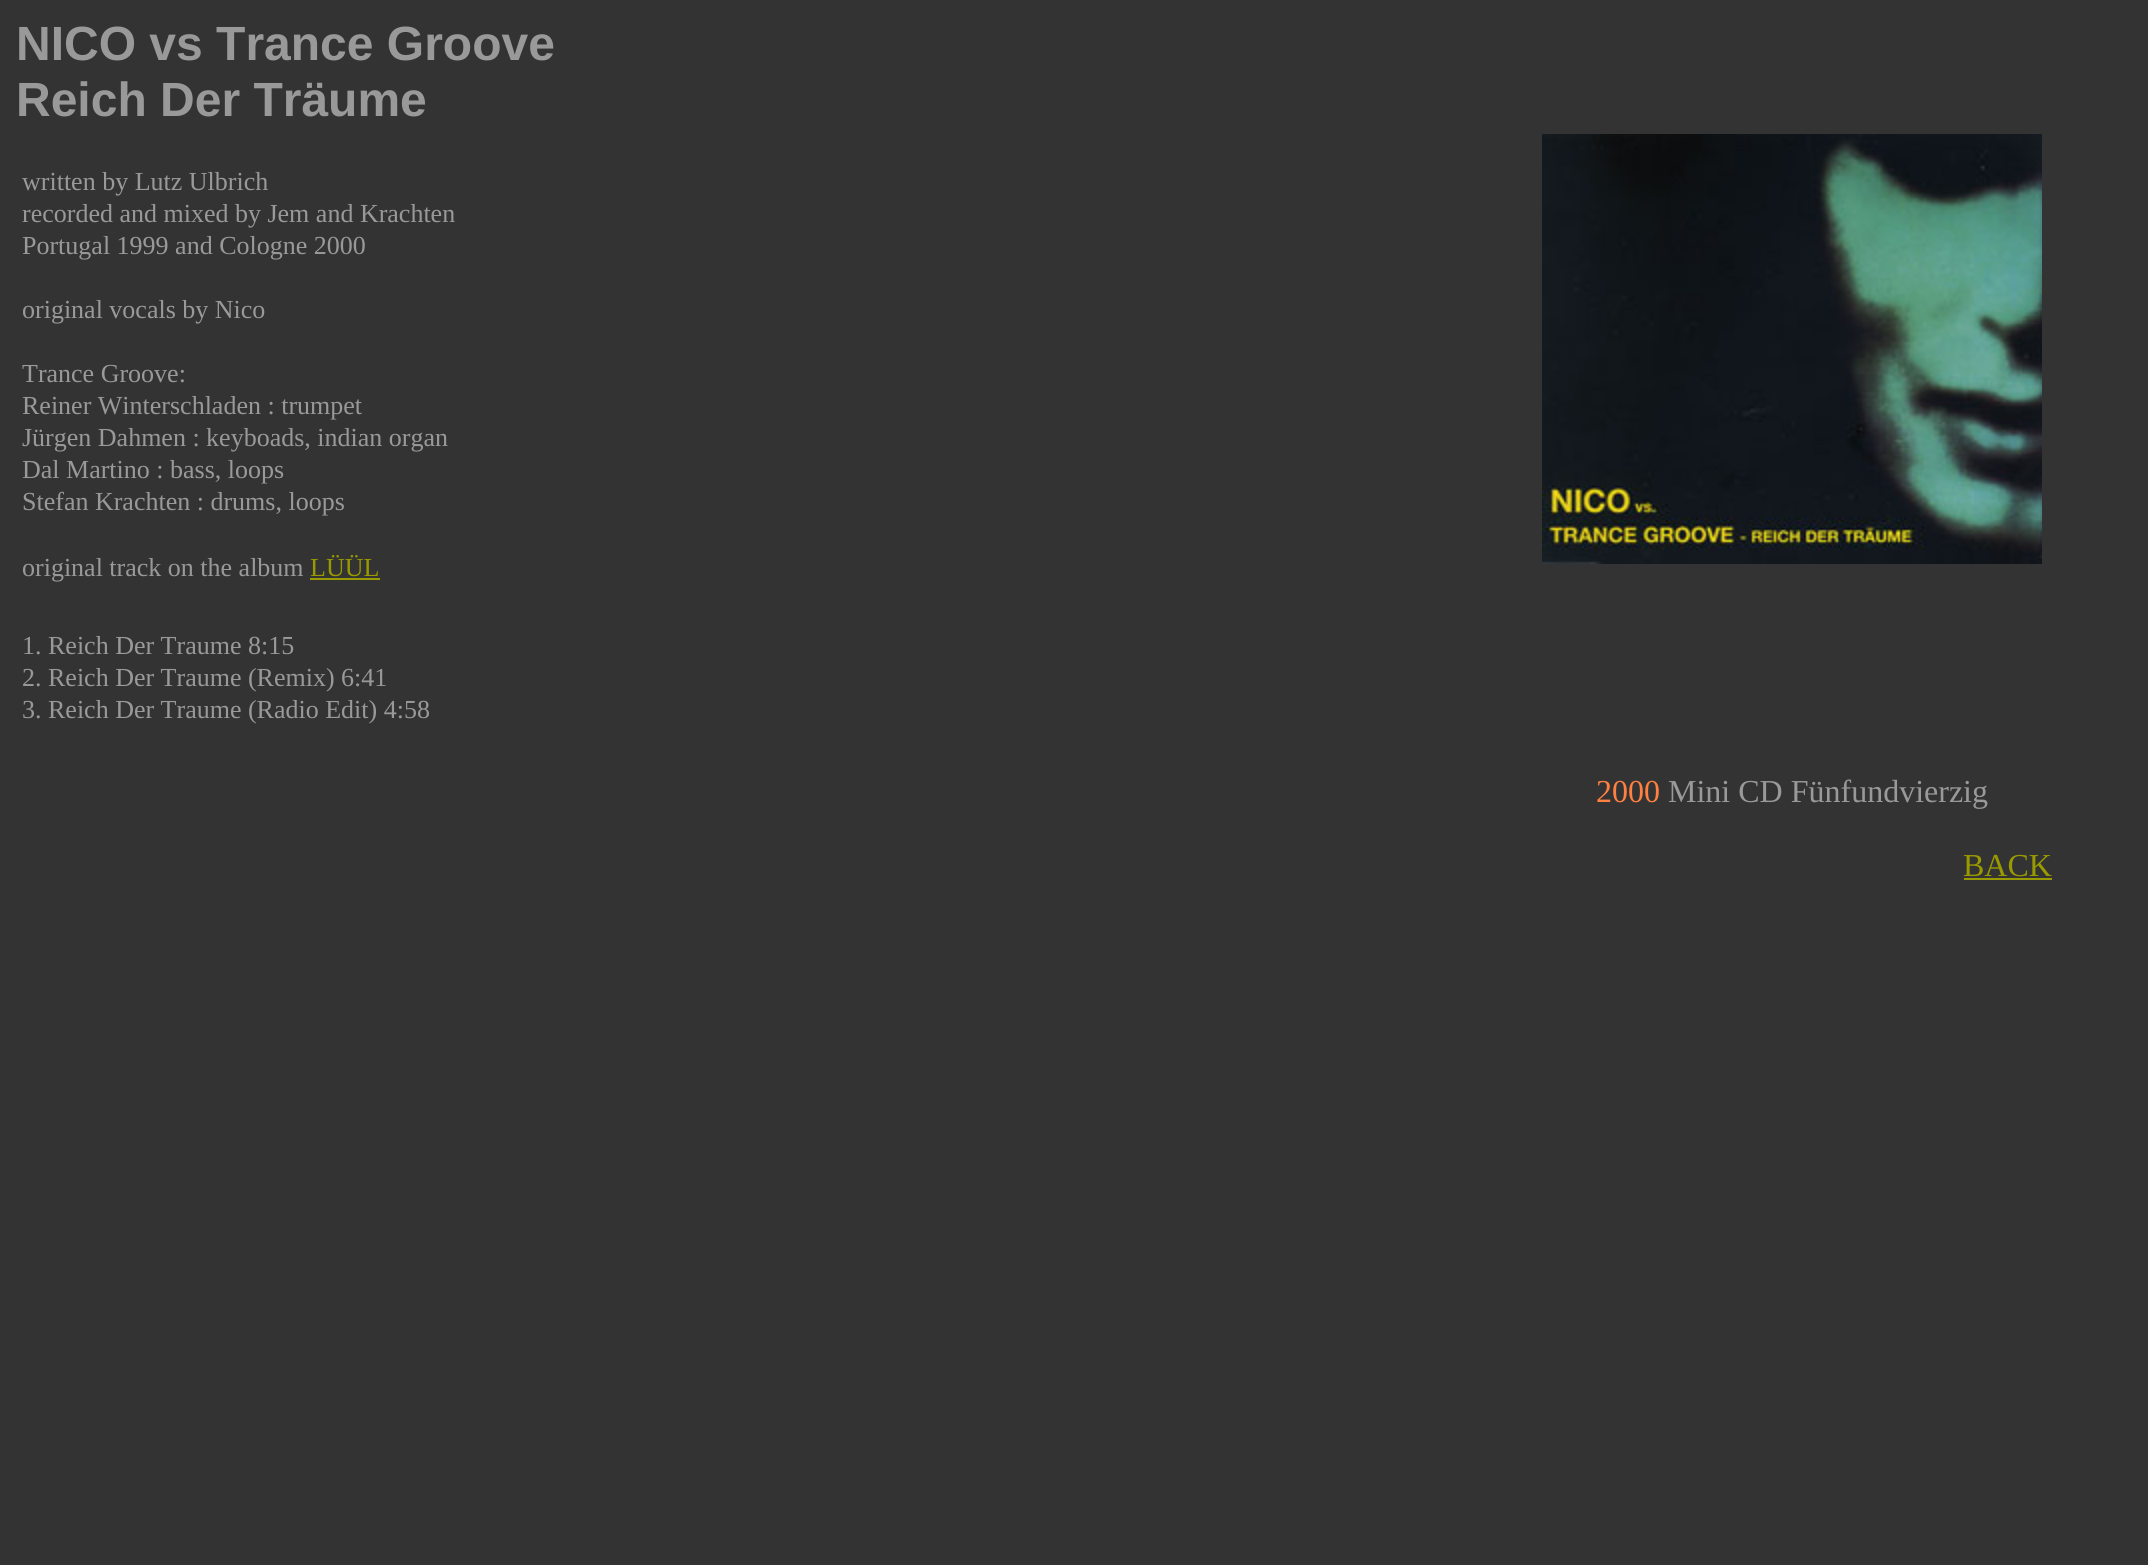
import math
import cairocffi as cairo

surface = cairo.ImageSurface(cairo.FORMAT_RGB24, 2148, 1565)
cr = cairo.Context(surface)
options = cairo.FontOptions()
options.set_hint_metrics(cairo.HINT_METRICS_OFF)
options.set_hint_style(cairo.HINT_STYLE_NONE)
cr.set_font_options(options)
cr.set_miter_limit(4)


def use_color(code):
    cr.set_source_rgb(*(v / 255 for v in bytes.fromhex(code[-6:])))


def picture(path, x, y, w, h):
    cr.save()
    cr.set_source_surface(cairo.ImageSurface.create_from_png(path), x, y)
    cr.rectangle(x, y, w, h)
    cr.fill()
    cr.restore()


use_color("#333333")
cr.paint()
cr.select_font_face("Liberation Sans", cairo.FONT_SLANT_NORMAL, cairo.FONT_WEIGHT_BOLD)
cr.set_font_size(48)
use_color("#999999")
cr.move_to(16, 60)
cr.show_text("NICO vs Trance Groove")
cr.move_to(16, 116)
cr.show_text("Reich Der Träume")
cr.select_font_face("Liberation Serif")
cr.set_font_size(26)
cr.move_to(22, 190)
cr.show_text("written by Lutz Ulbrich")
cr.move_to(22, 222)
cr.show_text("recorded and mixed by Jem and Krachten")
cr.move_to(22, 254)
cr.show_text("Portugal 1999 and Cologne 2000")
cr.move_to(22, 318)
cr.show_text("original vocals by Nico")
cr.move_to(22, 382)
cr.show_text("Trance Groove:")
cr.move_to(22, 414)
cr.show_text("Reiner Winterschladen : trumpet")
cr.move_to(22, 446)
cr.show_text("Jürgen Dahmen : keyboads, indian organ")
cr.move_to(22, 478)
cr.show_text("Dal Martino : bass, loops")
cr.move_to(22, 510)
cr.show_text("Stefan Krachten : drums, loops")
cr.move_to(22, 576)
cr.show_text("original track on the album")
use_color("#999900")
cr.rectangle(310, 578, 70, 2)
cr.fill()
cr.move_to(310, 576)
cr.show_text("LÜÜL")
picture("img1.png", 1542, 134, 500, 430)
use_color("#999999")
cr.move_to(22, 654)
cr.show_text("1. Reich Der Traume 8:15")
cr.move_to(22, 686)
cr.show_text("2. Reich Der Traume (Remix) 6:41")
cr.move_to(22, 718)
cr.show_text("3. Reich Der Traume (Radio Edit) 4:58")
cr.set_font_size(32)
use_color("#ff8040")
cr.move_to(1596, 802)
cr.show_text("2000")
use_color("#999999")
cr.move_to(1668, 802)
cr.show_text("Mini CD Fünfundvierzig")
use_color("#999900")
cr.move_to(1963, 876)
cr.show_text("BACK")
cr.rectangle(1964, 878, 88, 2)
cr.fill()
surface.write_to_png("result.png")
